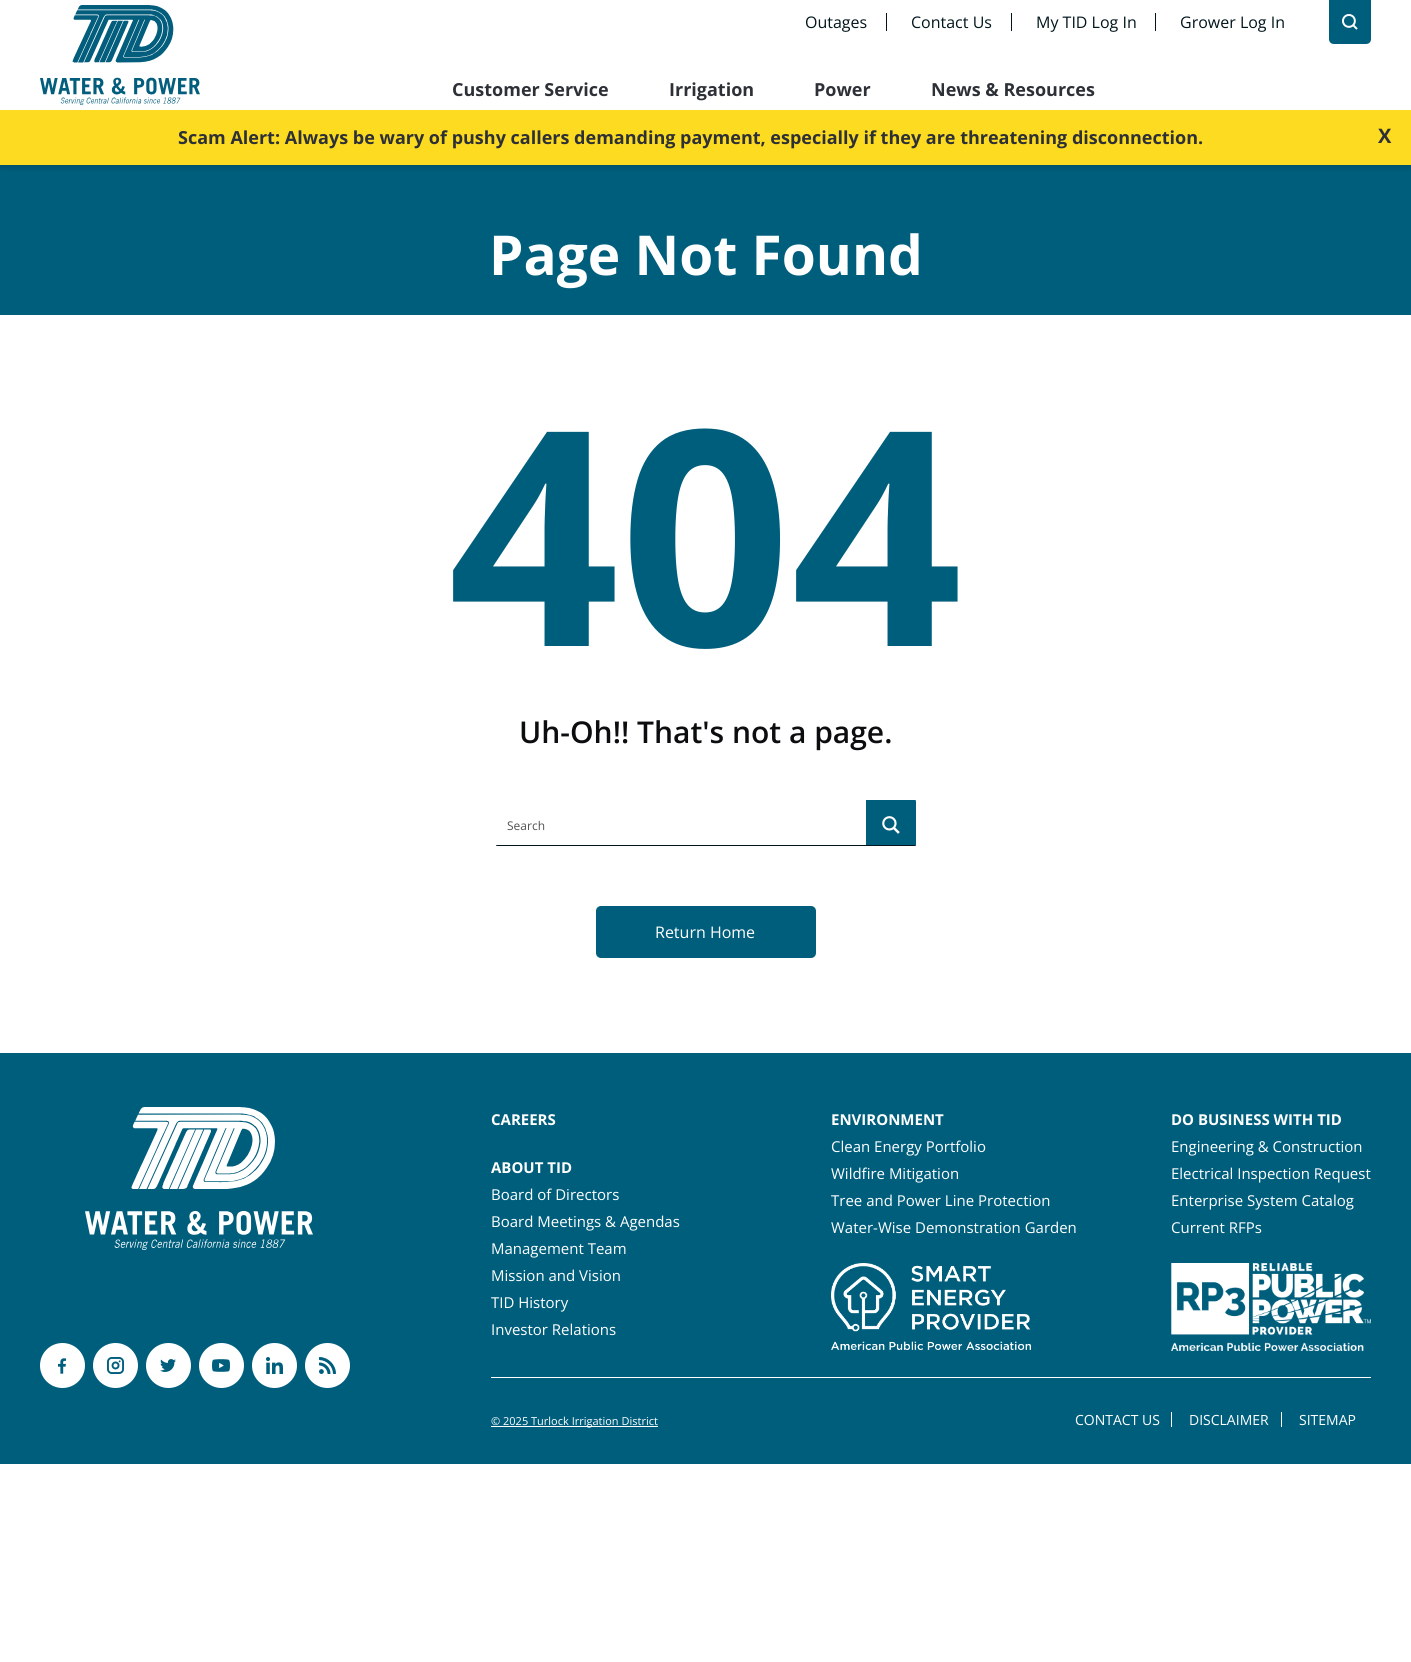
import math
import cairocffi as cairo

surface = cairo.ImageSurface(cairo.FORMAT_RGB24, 1411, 1662)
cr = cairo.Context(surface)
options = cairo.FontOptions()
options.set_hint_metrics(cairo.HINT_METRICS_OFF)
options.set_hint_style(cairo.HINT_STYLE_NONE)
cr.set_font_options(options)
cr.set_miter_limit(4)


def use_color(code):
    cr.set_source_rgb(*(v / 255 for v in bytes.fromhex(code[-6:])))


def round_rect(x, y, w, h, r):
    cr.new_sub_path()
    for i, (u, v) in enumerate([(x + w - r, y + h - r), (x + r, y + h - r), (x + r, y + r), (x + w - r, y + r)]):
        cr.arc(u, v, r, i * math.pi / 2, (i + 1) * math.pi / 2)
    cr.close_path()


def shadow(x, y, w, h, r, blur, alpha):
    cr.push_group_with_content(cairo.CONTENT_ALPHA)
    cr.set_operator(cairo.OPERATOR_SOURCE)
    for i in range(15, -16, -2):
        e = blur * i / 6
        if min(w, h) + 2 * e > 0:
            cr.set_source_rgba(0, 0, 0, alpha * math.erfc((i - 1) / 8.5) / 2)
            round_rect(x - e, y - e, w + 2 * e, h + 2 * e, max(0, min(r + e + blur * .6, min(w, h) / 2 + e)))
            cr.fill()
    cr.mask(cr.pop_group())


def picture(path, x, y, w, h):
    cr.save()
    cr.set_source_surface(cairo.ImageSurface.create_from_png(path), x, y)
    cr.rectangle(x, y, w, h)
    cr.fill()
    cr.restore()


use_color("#ffffff")
cr.paint()
use_color("#005e7d")
cr.rectangle(0, 165, 1411, 150)
cr.fill()
cr.save()
cr.rectangle(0, 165, 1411, 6)
cr.clip()
use_color("#000000")
shadow(0, 3, 1411, 165, 0, 3, 0.16)
cr.restore()
picture("img1.png", 40, 5, 160, 100)
cr.select_font_face("Open Sans")
cr.set_font_size(16)
use_color("#01151c")
cr.move_to(805, 28)
cr.show_text("Outages")
cr.rectangle(886, 13, 1, 18)
cr.fill()
cr.move_to(911, 28)
cr.show_text("Contact Us")
cr.rectangle(1011, 13, 1, 18)
cr.fill()
cr.move_to(1036, 28)
cr.show_text("My TID Log In")
cr.rectangle(1155, 13, 1, 18)
cr.fill()
cr.move_to(1180, 28)
cr.show_text("Grower Log In")
use_color("#005e7d")
cr.new_path()
cr.move_to(1329, 0)
cr.line_to(1371, 0)
cr.line_to(1371, 39)
cr.curve_to(1371, 42, 1369, 44, 1366, 44)
cr.line_to(1334, 44)
cr.curve_to(1331, 44, 1329, 42, 1329, 39)
cr.close_path()
cr.fill()
picture("img2.png", 1342, 14, 16, 16)
cr.select_font_face("Open Sans", cairo.FONT_SLANT_NORMAL, cairo.FONT_WEIGHT_BOLD)
cr.set_font_size(18)
use_color("#2d3036")
cr.move_to(452, 96)
cr.show_text("Customer Service")
cr.move_to(669, 96)
cr.show_text("Irrigation")
cr.move_to(814, 96)
cr.show_text("Power")
cr.move_to(931, 96)
cr.show_text("News & Resources")
use_color("#fddb20")
cr.rectangle(0, 110, 1411, 55)
cr.fill()
use_color("#2d3036")
cr.move_to(178, 144)
cr.show_text("Scam Alert: Always be wary of pushy callers demanding payment, especially if they are threatening disconnection.")
cr.set_font_size(20)
cr.move_to(1378, 143)
cr.show_text("X")
cr.set_font_size(55)
use_color("#ffffff")
cr.move_to(489, 275)
cr.show_text("Page Not Found")
cr.set_font_size(300)
use_color("#005e7d")
cr.move_to(448, 646)
cr.show_text("404")
cr.select_font_face("Open Sans SemiBold")
cr.set_font_size(30)
use_color("#0c0d0f")
cr.move_to(519, 743)
cr.show_text("Uh-Oh!! That's not a page.")
use_color("#01151c")
cr.new_path()
cr.move_to(496, 845)
cr.line_to(916, 845)
cr.curve_to(916, 845.5, 915.5, 846, 915, 846)
cr.line_to(497, 846)
cr.curve_to(496.5, 846, 496, 845.5, 496, 845)
cr.close_path()
cr.fill()
cr.select_font_face("Open Sans")
cr.set_font_size(12)
use_color("#525252")
cr.move_to(507, 830)
cr.show_text("Search")
use_color("#005e7d")
cr.new_path()
cr.move_to(866, 800)
cr.line_to(915, 800)
cr.curve_to(915.5, 800, 916, 800.5, 916, 801)
cr.line_to(916, 845)
cr.line_to(866, 845)
cr.close_path()
cr.fill()
picture("img3.png", 882, 816, 18, 18)
round_rect(596, 906, 220, 52, 5)
cr.fill()
cr.set_font_size(16)
use_color("#ffffff")
cr.move_to(655, 938)
cr.show_text("Return Home")
use_color("#005e7d")
cr.rectangle(0, 1053, 1411, 411)
cr.fill()
picture("img4.png", 85, 1107, 228, 143)
use_color("#ffffff")
cr.arc(62.5, 1365.5, 22.5, 0, 2 * math.pi)
cr.fill()
picture("img5.png", 58, 1358, 8, 16)
cr.arc(115.5, 1365.5, 22.5, 0, 2 * math.pi)
cr.fill()
picture("img6.png", 107, 1357, 17, 17)
cr.arc(168.5, 1365.5, 22.5, 0, 2 * math.pi)
cr.fill()
picture("img7.png", 160, 1359, 16, 13)
cr.arc(221.5, 1365.5, 22.5, 0, 2 * math.pi)
cr.fill()
picture("img8.png", 212, 1359, 18, 13)
cr.arc(274.5, 1365.5, 22.5, 0, 2 * math.pi)
cr.fill()
picture("img9.png", 266, 1357, 17, 17)
cr.arc(327.5, 1365.5, 22.5, 0, 2 * math.pi)
cr.fill()
picture("img10.png", 319, 1357, 17, 17)
cr.select_font_face("Open Sans", cairo.FONT_SLANT_NORMAL, cairo.FONT_WEIGHT_BOLD)
cr.set_font_size(15)
cr.move_to(491, 1125)
cr.show_text("CAREERS")
cr.move_to(491, 1173)
cr.show_text("ABOUT TID")
cr.select_font_face("Open Sans")
cr.move_to(491, 1200)
cr.show_text("Board of Directors")
cr.move_to(491, 1227)
cr.show_text("Board Meetings & Agendas")
cr.move_to(491, 1254)
cr.show_text("Management Team")
cr.move_to(491, 1281)
cr.show_text("Mission and Vision")
cr.move_to(491, 1308)
cr.show_text("TID History")
cr.move_to(491, 1335)
cr.show_text("Investor Relations")
cr.select_font_face("Open Sans", cairo.FONT_SLANT_NORMAL, cairo.FONT_WEIGHT_BOLD)
cr.move_to(831, 1125)
cr.show_text("ENVIRONMENT")
cr.select_font_face("Open Sans")
cr.move_to(831, 1152)
cr.show_text("Clean Energy Portfolio")
cr.move_to(831, 1179)
cr.show_text("Wildfire Mitigation")
cr.move_to(831, 1206)
cr.show_text("Tree and Power Line Protection")
cr.move_to(831, 1233)
cr.show_text("Water-Wise Demonstration Garden")
picture("img11.png", 831, 1263, 200, 87)
cr.select_font_face("Open Sans", cairo.FONT_SLANT_NORMAL, cairo.FONT_WEIGHT_BOLD)
cr.move_to(1171, 1125)
cr.show_text("DO BUSINESS WITH TID")
cr.select_font_face("Open Sans")
cr.move_to(1171, 1152)
cr.show_text("Engineering & Construction")
cr.move_to(1171, 1179)
cr.show_text("Electrical Inspection Request")
cr.move_to(1171, 1206)
cr.show_text("Enterprise System Catalog")
cr.move_to(1171, 1233)
cr.show_text("Current RFPs")
picture("img12.png", 1171, 1263, 200, 88)
cr.rectangle(491, 1377, 880, 1)
cr.fill()
cr.rectangle(491, 1426, 167, 1)
cr.fill()
cr.set_font_size(11)
cr.move_to(491, 1425)
cr.show_text("© 2025 Turlock Irrigation District")
cr.set_font_size(14)
cr.move_to(1075, 1425)
cr.show_text("CONTACT US")
cr.rectangle(1171, 1412, 1, 15)
cr.fill()
cr.move_to(1189, 1425)
cr.show_text("DISCLAIMER")
cr.rectangle(1281, 1412, 1, 15)
cr.fill()
cr.move_to(1299, 1425)
cr.show_text("SITEMAP")
surface.write_to_png("result.png")
